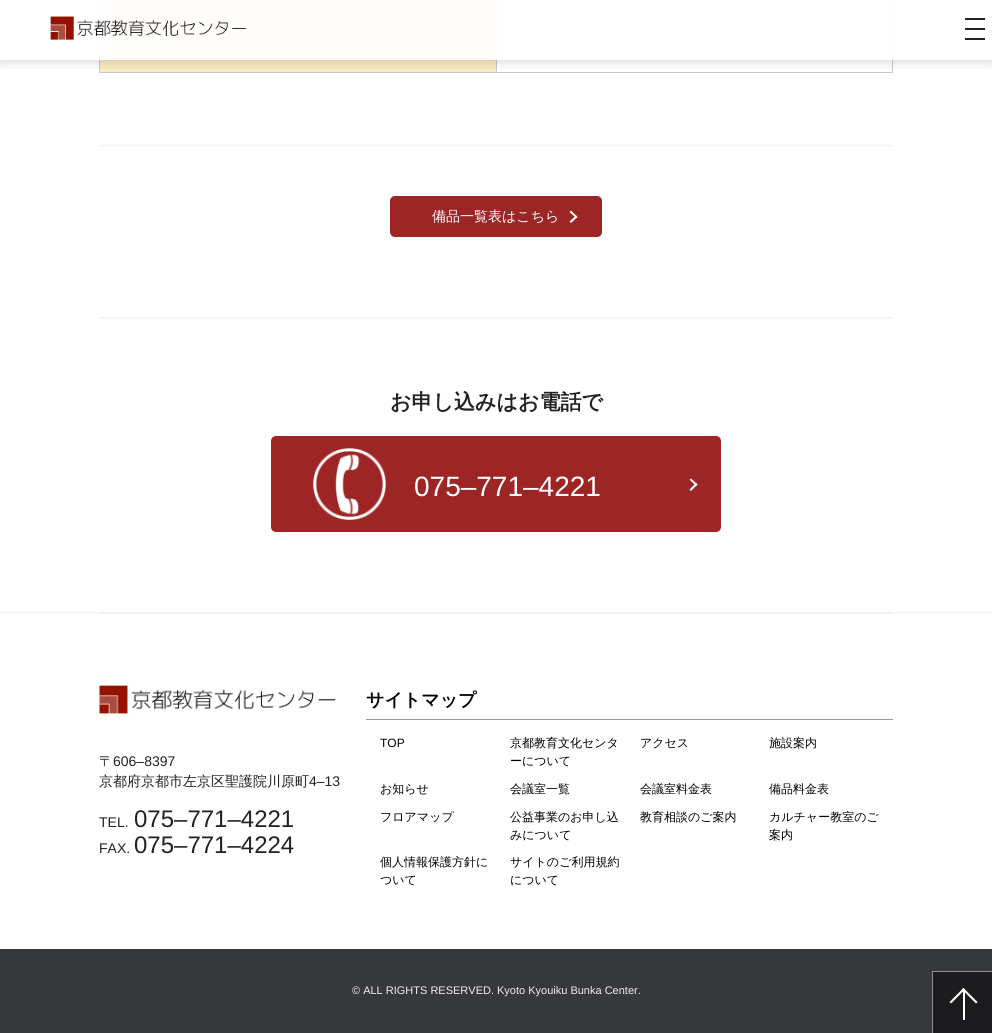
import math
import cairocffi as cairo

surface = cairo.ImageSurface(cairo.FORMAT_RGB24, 992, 1033)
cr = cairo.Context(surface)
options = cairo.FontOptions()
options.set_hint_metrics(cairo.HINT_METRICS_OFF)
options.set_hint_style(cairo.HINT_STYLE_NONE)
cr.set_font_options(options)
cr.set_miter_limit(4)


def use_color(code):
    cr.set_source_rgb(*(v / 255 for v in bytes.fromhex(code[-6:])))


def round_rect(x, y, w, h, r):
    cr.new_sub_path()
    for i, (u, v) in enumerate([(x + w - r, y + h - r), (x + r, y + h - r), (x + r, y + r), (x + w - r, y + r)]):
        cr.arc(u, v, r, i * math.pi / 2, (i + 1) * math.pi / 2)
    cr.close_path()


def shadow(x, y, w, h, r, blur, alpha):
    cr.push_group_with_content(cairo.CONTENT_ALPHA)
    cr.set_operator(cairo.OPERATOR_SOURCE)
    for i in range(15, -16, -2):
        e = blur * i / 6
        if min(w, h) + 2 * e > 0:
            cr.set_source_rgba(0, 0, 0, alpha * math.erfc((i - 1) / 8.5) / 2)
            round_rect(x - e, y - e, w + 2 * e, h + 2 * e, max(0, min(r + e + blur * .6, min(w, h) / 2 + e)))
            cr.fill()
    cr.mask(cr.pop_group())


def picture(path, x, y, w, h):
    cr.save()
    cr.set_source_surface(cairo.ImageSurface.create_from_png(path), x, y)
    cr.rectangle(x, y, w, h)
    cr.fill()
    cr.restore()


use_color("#ffffff")
cr.paint()
use_color("#c8c8c8")
cr.rectangle(99, 60, 1, 13)
cr.fill()
use_color("#fcfcfc")
cr.rectangle(99, 0, 1, 60)
cr.fill()
use_color("#f7ebc1")
cr.rectangle(100, 60, 396, 12)
cr.fill()
use_color("#fffefc")
cr.rectangle(100, 0, 396, 60)
cr.fill()
use_color("#c8c8c8")
cr.rectangle(496, 60, 1, 13)
cr.fill()
use_color("#fcfcfc")
cr.rectangle(496, 0, 1, 60)
cr.fill()
use_color("#c8c8c8")
cr.rectangle(100, 72, 397, 1)
cr.fill()
cr.rectangle(892, 60, 1, 13)
cr.fill()
use_color("#fcfcfc")
cr.rectangle(892, 0, 1, 60)
cr.fill()
use_color("#c8c8c8")
cr.rectangle(497, 72, 396, 1)
cr.fill()
cr.save()
cr.rectangle(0, 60, 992, 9)
cr.clip()
use_color("#000000")
shadow(0, 2, 992, 60, 0, 6, 0.15)
cr.restore()
use_color("#222222")
cr.rectangle(965, 28, 20, 2)
cr.fill()
cr.rectangle(965, 18, 20, 2)
cr.fill()
cr.rectangle(965, 38, 20, 2)
cr.fill()
picture("img1.png", 50, 16, 197, 24)
use_color("#f0f0f0")
cr.rectangle(99, 145, 794, 1)
cr.fill()
use_color("#9d2525")
round_rect(390, 196, 212, 41, 5)
cr.fill()
cr.select_font_face("WenQuanYi Zen Hei Medium")
cr.set_font_size(14)
use_color("#ffffff")
cr.move_to(432, 221)
cr.show_text("備品一覧表はこちら")
cr.new_path()
cr.move_to(571, 210.5)
cr.line_to(577.5, 217)
cr.line_to(576, 218)
cr.line_to(569.5, 212)
cr.close_path()
cr.fill()
cr.new_path()
cr.move_to(576, 215.5)
cr.line_to(577.5, 217)
cr.line_to(571, 223)
cr.line_to(569.5, 221.5)
cr.close_path()
cr.fill()
use_color("#f0f0f0")
cr.rectangle(99, 317, 794, 1)
cr.fill()
cr.select_font_face("WenQuanYi Zen Hei", cairo.FONT_SLANT_NORMAL, cairo.FONT_WEIGHT_BOLD)
cr.set_font_size(21)
use_color("#222222")
cr.move_to(390, 409)
cr.show_text("お申し込みはお電話で")
use_color("#9d2525")
round_rect(271, 436, 450, 96, 5)
cr.fill()
picture("img2.png", 313, 448, 73, 72)
cr.select_font_face("Liberation Sans")
cr.set_font_size(28)
use_color("#ffffff")
cr.move_to(414, 496)
cr.show_text("075‒771‒4221")
cr.new_path()
cr.move_to(691, 478.5)
cr.line_to(697.5, 484.5)
cr.line_to(696, 486)
cr.line_to(689.5, 479.5)
cr.close_path()
cr.fill()
cr.new_path()
cr.move_to(696, 483)
cr.line_to(697.5, 484.5)
cr.line_to(691, 491)
cr.line_to(689.5, 489.5)
cr.close_path()
cr.fill()
use_color("#f0f0f0")
cr.rectangle(0, 612, 992, 1)
cr.fill()
cr.rectangle(99, 613, 794, 1)
cr.fill()
picture("img3.png", 99, 685, 237, 29)
cr.select_font_face("WenQuanYi Zen Hei Medium")
cr.set_font_size(14)
use_color("#222222")
cr.move_to(99, 766)
cr.show_text("〒")
cr.select_font_face("Liberation Sans")
cr.move_to(113, 766)
cr.show_text("606‒8397")
cr.select_font_face("WenQuanYi Zen Hei Medium")
cr.move_to(99, 786)
cr.show_text("京都府京都市左京区聖護院川原町")
cr.select_font_face("Liberation Sans")
cr.move_to(309, 786)
cr.show_text("4‒13")
cr.move_to(99, 827)
cr.show_text("TEL.")
cr.set_font_size(24)
cr.move_to(134, 827)
cr.show_text("075‒771‒4221")
cr.set_font_size(14)
cr.move_to(99, 853)
cr.show_text("FAX.")
cr.set_font_size(24)
cr.move_to(134, 853)
cr.show_text("075‒771‒4224")
use_color("#999999")
cr.rectangle(366, 719, 527, 1)
cr.fill()
cr.select_font_face("WenQuanYi Zen Hei", cairo.FONT_SLANT_NORMAL, cairo.FONT_WEIGHT_BOLD)
cr.set_font_size(18)
use_color("#000000")
cr.move_to(366, 706)
cr.show_text("サイトマップ")
cr.select_font_face("Liberation Sans")
cr.set_font_size(12)
cr.move_to(380, 747)
cr.show_text("TOP")
cr.select_font_face("WenQuanYi Zen Hei Medium")
cr.move_to(510, 747)
cr.show_text("京都教育文化センタ")
cr.move_to(510, 765)
cr.show_text("ーについて")
cr.move_to(640, 747)
cr.show_text("アクセス")
cr.move_to(769, 747)
cr.show_text("施設案内")
cr.move_to(380, 793)
cr.show_text("お知らせ")
cr.move_to(510, 793)
cr.show_text("会議室一覧")
cr.move_to(640, 793)
cr.show_text("会議室料金表")
cr.move_to(769, 793)
cr.show_text("備品料金表")
cr.move_to(380, 821)
cr.show_text("フロアマップ")
cr.move_to(510, 821)
cr.show_text("公益事業のお申し込")
cr.move_to(510, 839)
cr.show_text("みについて")
cr.move_to(640, 821)
cr.show_text("教育相談のご案内")
cr.move_to(769, 821)
cr.show_text("カルチャー教室のご")
cr.move_to(769, 839)
cr.show_text("案内")
cr.move_to(380, 866)
cr.show_text("個人情報保護方針に")
cr.move_to(380, 884)
cr.show_text("ついて")
cr.move_to(510, 866)
cr.show_text("サイトのご利用規約")
cr.move_to(510, 884)
cr.show_text("について")
use_color("#37383c")
cr.rectangle(0, 949, 992, 84)
cr.fill()
cr.select_font_face("Liberation Sans")
cr.set_font_size(11)
use_color("#eeeeee")
cr.move_to(352, 994)
cr.show_text("© ALL RIGHTS RESERVED. Kyoto Kyouiku Bunka Center.")
use_color("#1c1c1e")
cr.rectangle(932, 971, 60, 62)
cr.fill()
use_color("#8e8e8f")
cr.new_path()
cr.move_to(932, 971)
cr.line_to(992, 971)
cr.line_to(992, 972)
cr.line_to(933, 972)
cr.close_path()
cr.fill()
cr.set_source_rgba(1, 1, 1, 0.5)
cr.new_path()
cr.move_to(932, 1033)
cr.line_to(932, 971)
cr.line_to(933, 972)
cr.line_to(933, 1033)
cr.close_path()
cr.fill()
use_color("#ffffff")
cr.rectangle(963, 990, 2, 30)
cr.fill()
cr.new_path()
cr.move_to(949.5, 1002)
cr.line_to(963.5, 988)
cr.line_to(965, 989.5)
cr.line_to(951, 1003.5)
cr.close_path()
cr.fill()
cr.new_path()
cr.move_to(962, 989.5)
cr.line_to(963.5, 988)
cr.line_to(977.5, 1002)
cr.line_to(976, 1003.5)
cr.close_path()
cr.fill()
surface.write_to_png("result.png")
